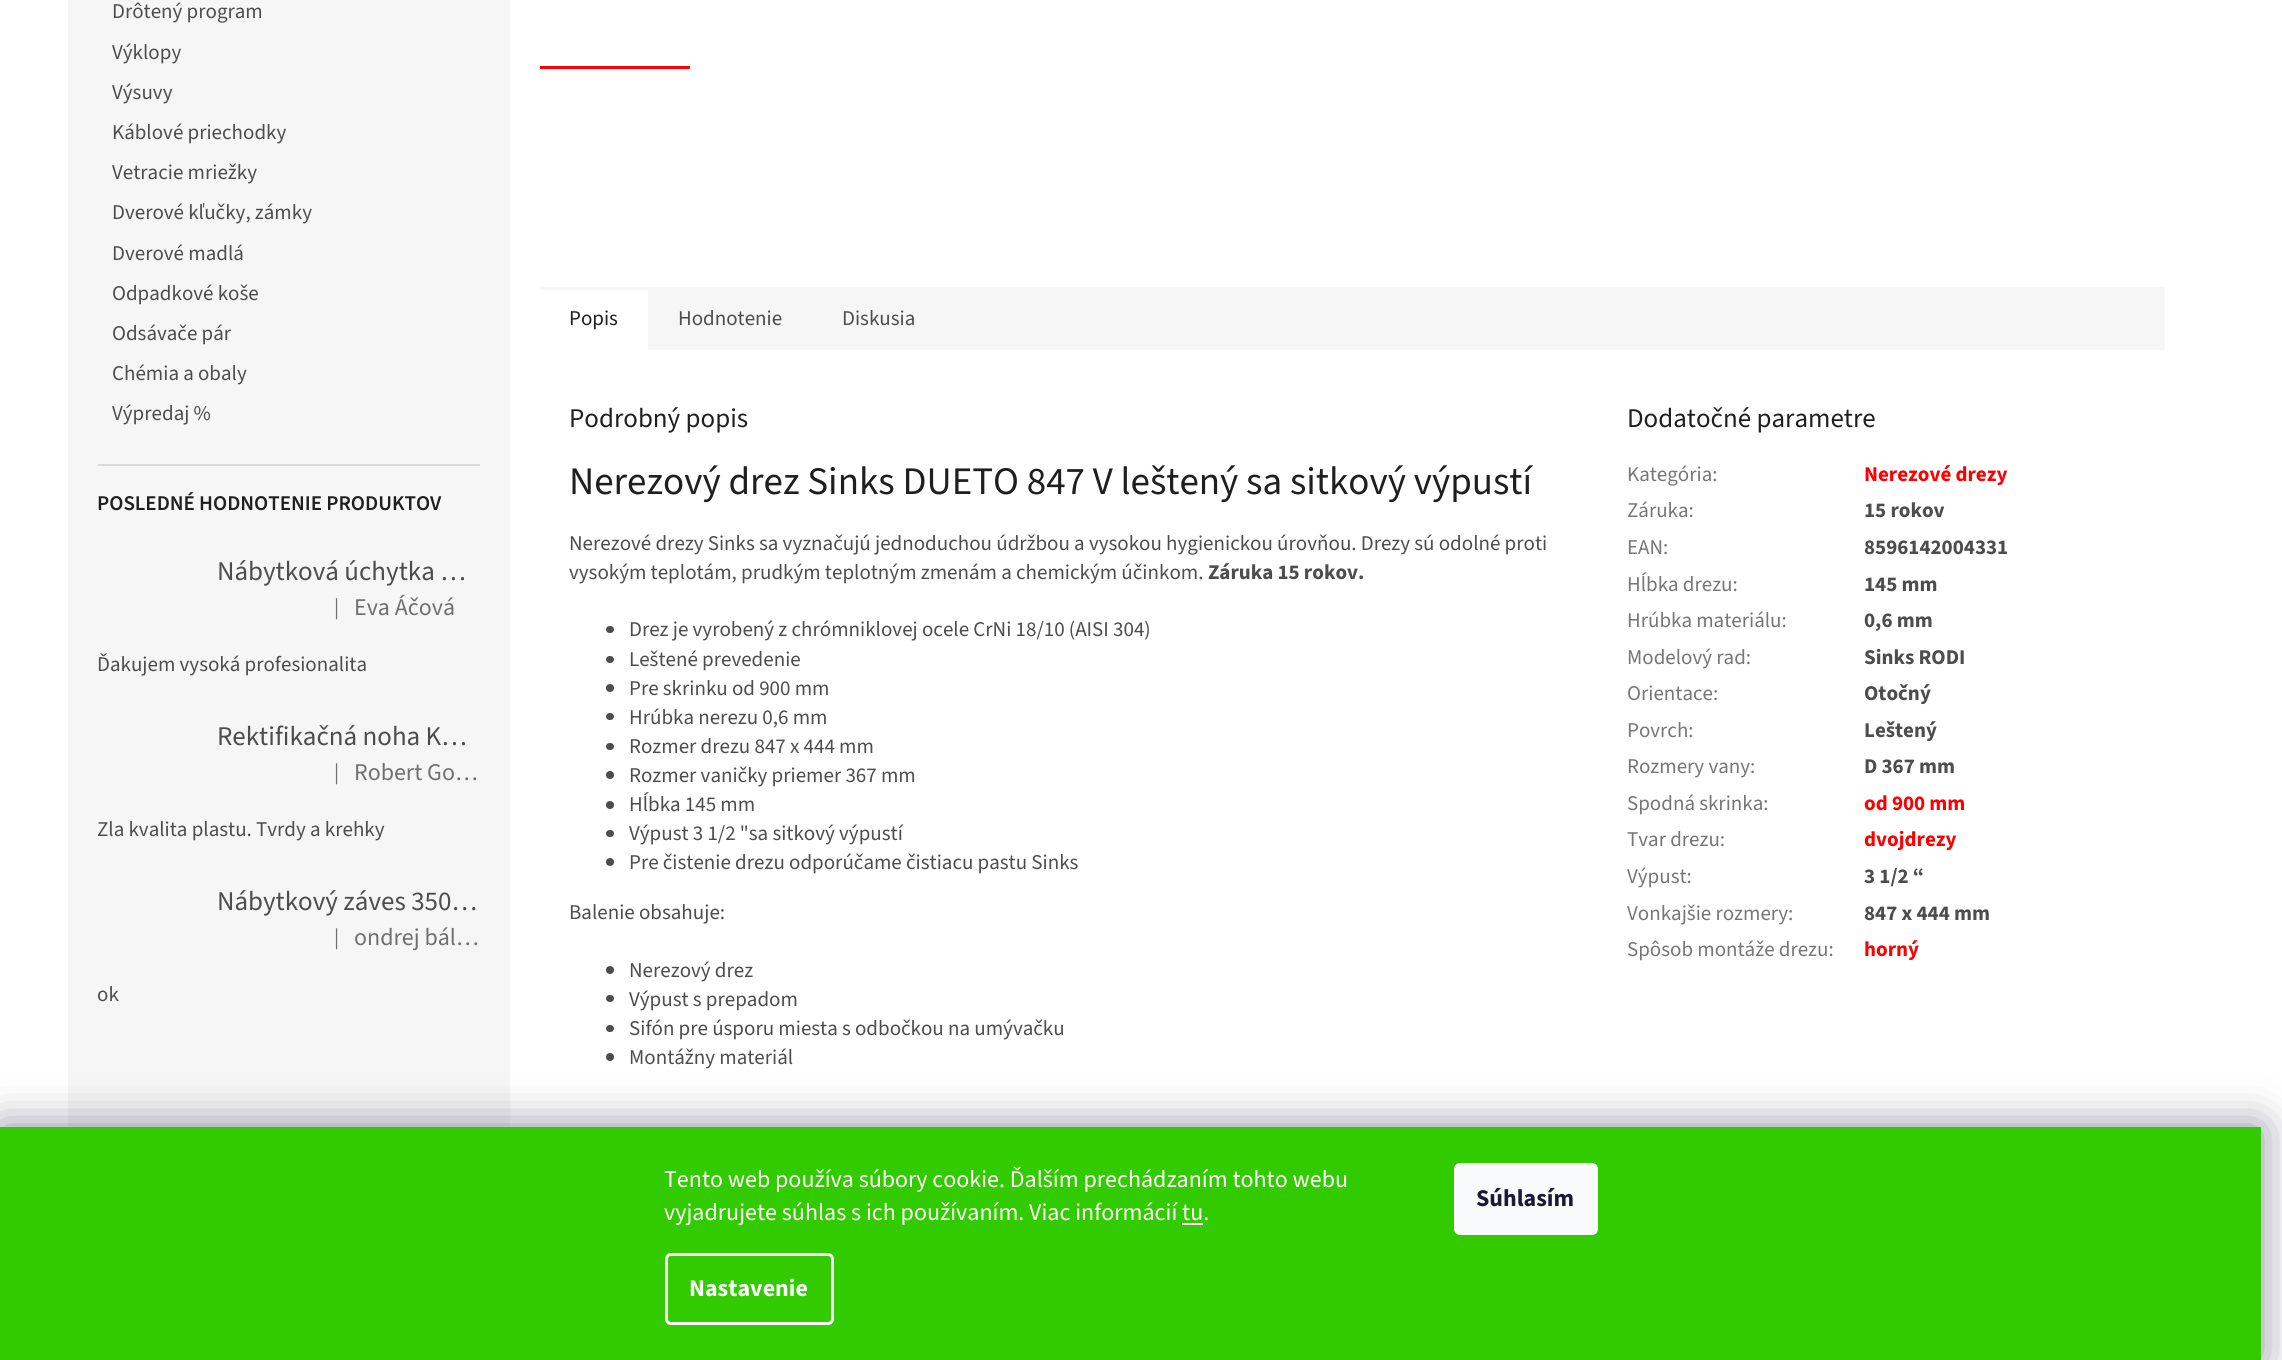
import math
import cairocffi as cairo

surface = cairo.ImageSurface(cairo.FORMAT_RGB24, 2282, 1360)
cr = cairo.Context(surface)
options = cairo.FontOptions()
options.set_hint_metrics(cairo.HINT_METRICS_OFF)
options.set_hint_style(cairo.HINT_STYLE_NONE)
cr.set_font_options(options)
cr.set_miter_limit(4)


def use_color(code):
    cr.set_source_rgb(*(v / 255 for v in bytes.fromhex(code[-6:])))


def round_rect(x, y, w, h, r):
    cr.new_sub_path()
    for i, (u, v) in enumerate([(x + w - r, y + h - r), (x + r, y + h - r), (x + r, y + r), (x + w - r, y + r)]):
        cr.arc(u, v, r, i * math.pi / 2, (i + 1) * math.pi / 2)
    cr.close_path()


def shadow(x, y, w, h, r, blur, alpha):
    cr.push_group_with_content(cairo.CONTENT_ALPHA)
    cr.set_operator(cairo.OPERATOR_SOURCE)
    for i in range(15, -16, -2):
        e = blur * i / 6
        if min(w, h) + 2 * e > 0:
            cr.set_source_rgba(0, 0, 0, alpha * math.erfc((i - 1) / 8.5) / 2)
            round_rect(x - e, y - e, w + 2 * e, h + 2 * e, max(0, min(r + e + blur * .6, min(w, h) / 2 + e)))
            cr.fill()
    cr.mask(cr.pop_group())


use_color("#ffffff")
cr.paint()
use_color("#f6f6f6")
cr.rectangle(68, 0, 442, 1127)
cr.fill()
use_color("#dadada")
cr.rectangle(98, 464, 382, 2)
cr.fill()
cr.select_font_face("Source Sans 3")
cr.set_font_size(21)
use_color("#4d4d4d")
cr.move_to(112, 18)
cr.show_text("Drôtený program")
cr.move_to(112, 59)
cr.show_text("Výklopy")
cr.move_to(112, 99)
cr.show_text("Výsuvy")
cr.move_to(112, 139)
cr.show_text("Káblové priechodky")
cr.move_to(112, 179)
cr.show_text("Vetracie mriežky")
cr.move_to(112, 219)
cr.show_text("Dverové kľučky, zámky")
cr.move_to(112, 260)
cr.show_text("Dverové madlá")
cr.move_to(112, 300)
cr.show_text("Odpadkové koše")
cr.move_to(112, 340)
cr.show_text("Odsávače pár")
cr.move_to(112, 380)
cr.show_text("Chémia a obaly")
cr.move_to(112, 420)
cr.show_text("Výpredaj %")
cr.select_font_face("Source Sans 3 SemiBold")
use_color("#1f1f1f")
cr.move_to(97, 510)
cr.show_text("POSLEDNÉ HODNOTENIE PRODUKTOV")
cr.select_font_face("Source Sans 3")
cr.set_font_size(27)
use_color("#4d4d4d")
cr.move_to(217, 580)
cr.show_text("Nábytková úchytka …")
cr.set_font_size(21)
use_color("#707070")
cr.move_to(334, 614)
cr.show_text("|")
cr.set_font_size(24)
cr.move_to(354, 615)
cr.show_text("Eva Áčová")
cr.set_font_size(21)
use_color("#4d4d4d")
cr.move_to(97, 671)
cr.show_text("Ďakujem vysoká profesionalita")
cr.set_font_size(27)
cr.move_to(217, 745)
cr.show_text("Rektifikačná noha K…")
cr.set_font_size(21)
use_color("#707070")
cr.move_to(334, 779)
cr.show_text("|")
cr.set_font_size(24)
cr.move_to(354, 780)
cr.show_text("Robert Go…")
cr.set_font_size(21)
use_color("#4d4d4d")
cr.move_to(97, 836)
cr.show_text("Zla kvalita plastu. Tvrdy a krehky")
cr.set_font_size(27)
cr.move_to(217, 910)
cr.show_text("Nábytkový záves 350…")
cr.set_font_size(21)
use_color("#707070")
cr.move_to(334, 944)
cr.show_text("|")
cr.set_font_size(24)
cr.move_to(354, 945)
cr.show_text("ondrej bál…")
cr.set_font_size(21)
use_color("#4d4d4d")
cr.move_to(97, 1001)
cr.show_text("ok")
use_color("#fe0000")
cr.rectangle(540, 66, 150, 3)
cr.fill()
use_color("#f6f6f6")
cr.rectangle(648, 287, 1517, 63)
cr.fill()
cr.rectangle(540, 287, 108, 3)
cr.fill()
use_color("#1f1f1f")
cr.move_to(569, 325)
cr.show_text("Popis")
use_color("#4d4d4d")
cr.move_to(678, 325)
cr.show_text("Hodnotenie")
cr.move_to(842, 325)
cr.show_text("Diskusia")
cr.set_font_size(27)
use_color("#1f1f1f")
cr.move_to(569, 427)
cr.show_text("Podrobný popis")
cr.set_font_size(39)
cr.move_to(569, 494)
cr.show_text("Nerezový drez Sinks DUETO 847 V leštený sa sitkový výpustí")
cr.set_font_size(21)
use_color("#4d4d4d")
cr.move_to(569, 550)
cr.show_text("Nerezové drezy Sinks sa vyznačujú jednoduchou údržbou a vysokou hygienickou úrovňou. Drezy sú odolné proti")
cr.move_to(569, 579)
cr.show_text("vysokým teplotám, prudkým teplotným zmenám a chemickým účinkom.")
cr.select_font_face("Source Sans 3", cairo.FONT_SLANT_NORMAL, cairo.FONT_WEIGHT_BOLD)
cr.move_to(1208, 579)
cr.show_text("Záruka 15 rokov.")
round_rect(606, 626, 8, 7, 3.5)
cr.fill()
cr.select_font_face("Source Sans 3")
cr.move_to(629, 636)
cr.show_text("Drez je vyrobený z chrómniklovej ocele CrNi 18/10 (AISI 304)")
round_rect(606, 656, 8, 7, 3.5)
cr.fill()
cr.move_to(629, 666)
cr.show_text("Leštené prevedenie")
cr.new_path()
cr.arc(610, 688, 4, 0, 2 * math.pi)
cr.fill()
cr.move_to(629, 695)
cr.show_text("Pre skrinku od 900 mm")
round_rect(606, 713, 8, 7, 3.5)
cr.fill()
cr.move_to(629, 724)
cr.show_text("Hrúbka nerezu 0,6 mm")
round_rect(606, 743, 8, 7, 3.5)
cr.fill()
cr.move_to(629, 753)
cr.show_text("Rozmer drezu 847 x 444 mm")
cr.new_path()
cr.arc(610, 775, 4, 0, 2 * math.pi)
cr.fill()
cr.move_to(629, 782)
cr.show_text("Rozmer vaničky priemer 367 mm")
cr.new_path()
cr.arc(610, 805, 4, 0, 2 * math.pi)
cr.fill()
cr.move_to(629, 811)
cr.show_text("Hĺbka 145 mm")
round_rect(606, 830, 8, 7, 3.5)
cr.fill()
cr.move_to(629, 840)
cr.show_text("Výpust 3 1/2 \"sa sitkový výpustí")
cr.new_path()
cr.arc(610, 862, 4, 0, 2 * math.pi)
cr.fill()
cr.move_to(629, 869)
cr.show_text("Pre čistenie drezu odporúčame čistiacu pastu Sinks")
cr.move_to(569, 919)
cr.show_text("Balenie obsahuje:")
cr.new_path()
cr.arc(610, 970, 4, 0, 2 * math.pi)
cr.fill()
cr.move_to(629, 977)
cr.show_text("Nerezový drez")
round_rect(606, 995, 8, 7, 3.5)
cr.fill()
cr.move_to(629, 1006)
cr.show_text("Výpust s prepadom")
round_rect(606, 1025, 8, 7, 3.5)
cr.fill()
cr.move_to(629, 1035)
cr.show_text("Sifón pre úsporu miesta s odbočkou na umývačku")
cr.new_path()
cr.arc(610, 1057, 4, 0, 2 * math.pi)
cr.fill()
cr.move_to(629, 1064)
cr.show_text("Montážny materiál")
cr.set_font_size(27)
use_color("#1f1f1f")
cr.move_to(1627, 427)
cr.show_text("Dodatočné parametre")
cr.set_font_size(21)
use_color("#767676")
cr.move_to(1627, 481)
cr.show_text("Kategória:")
cr.select_font_face("Source Sans 3", cairo.FONT_SLANT_NORMAL, cairo.FONT_WEIGHT_BOLD)
use_color("#fe0000")
cr.move_to(1864, 481)
cr.show_text("Nerezové drezy")
cr.select_font_face("Source Sans 3")
use_color("#767676")
cr.move_to(1627, 517)
cr.show_text("Záruka:")
cr.select_font_face("Source Sans 3", cairo.FONT_SLANT_NORMAL, cairo.FONT_WEIGHT_BOLD)
use_color("#4d4d4d")
cr.move_to(1864, 517)
cr.show_text("15 rokov")
cr.select_font_face("Source Sans 3")
use_color("#767676")
cr.move_to(1627, 554)
cr.show_text("EAN:")
cr.select_font_face("Source Sans 3", cairo.FONT_SLANT_NORMAL, cairo.FONT_WEIGHT_BOLD)
use_color("#4d4d4d")
cr.move_to(1864, 554)
cr.show_text("8596142004331")
cr.select_font_face("Source Sans 3")
use_color("#767676")
cr.move_to(1627, 591)
cr.show_text("Hĺbka drezu:")
cr.select_font_face("Source Sans 3", cairo.FONT_SLANT_NORMAL, cairo.FONT_WEIGHT_BOLD)
use_color("#4d4d4d")
cr.move_to(1864, 591)
cr.show_text("145 mm")
cr.select_font_face("Source Sans 3")
use_color("#767676")
cr.move_to(1627, 627)
cr.show_text("Hrúbka materiálu:")
cr.select_font_face("Source Sans 3", cairo.FONT_SLANT_NORMAL, cairo.FONT_WEIGHT_BOLD)
use_color("#4d4d4d")
cr.move_to(1864, 627)
cr.show_text("0,6 mm")
cr.select_font_face("Source Sans 3")
use_color("#767676")
cr.move_to(1627, 664)
cr.show_text("Modelový rad:")
cr.select_font_face("Source Sans 3", cairo.FONT_SLANT_NORMAL, cairo.FONT_WEIGHT_BOLD)
use_color("#4d4d4d")
cr.move_to(1864, 664)
cr.show_text("Sinks RODI")
cr.select_font_face("Source Sans 3")
use_color("#767676")
cr.move_to(1627, 700)
cr.show_text("Orientace:")
cr.select_font_face("Source Sans 3", cairo.FONT_SLANT_NORMAL, cairo.FONT_WEIGHT_BOLD)
use_color("#4d4d4d")
cr.move_to(1864, 700)
cr.show_text("Otočný")
cr.select_font_face("Source Sans 3")
use_color("#767676")
cr.move_to(1627, 737)
cr.show_text("Povrch:")
cr.select_font_face("Source Sans 3", cairo.FONT_SLANT_NORMAL, cairo.FONT_WEIGHT_BOLD)
use_color("#4d4d4d")
cr.move_to(1864, 737)
cr.show_text("Leštený")
cr.select_font_face("Source Sans 3")
use_color("#767676")
cr.move_to(1627, 773)
cr.show_text("Rozmery vany:")
cr.select_font_face("Source Sans 3", cairo.FONT_SLANT_NORMAL, cairo.FONT_WEIGHT_BOLD)
use_color("#4d4d4d")
cr.move_to(1864, 773)
cr.show_text("D 367 mm")
cr.select_font_face("Source Sans 3")
use_color("#767676")
cr.move_to(1627, 810)
cr.show_text("Spodná skrinka:")
cr.select_font_face("Source Sans 3", cairo.FONT_SLANT_NORMAL, cairo.FONT_WEIGHT_BOLD)
use_color("#fe0000")
cr.move_to(1864, 810)
cr.show_text("od 900 mm")
cr.select_font_face("Source Sans 3")
use_color("#767676")
cr.move_to(1627, 846)
cr.show_text("Tvar drezu:")
cr.select_font_face("Source Sans 3", cairo.FONT_SLANT_NORMAL, cairo.FONT_WEIGHT_BOLD)
use_color("#fe0000")
cr.move_to(1864, 846)
cr.show_text("dvojdrezy")
cr.select_font_face("Source Sans 3")
use_color("#767676")
cr.move_to(1627, 883)
cr.show_text("Výpust:")
cr.select_font_face("Source Sans 3", cairo.FONT_SLANT_NORMAL, cairo.FONT_WEIGHT_BOLD)
use_color("#4d4d4d")
cr.move_to(1864, 883)
cr.show_text("3 1/2 “")
cr.select_font_face("Source Sans 3")
use_color("#767676")
cr.move_to(1627, 920)
cr.show_text("Vonkajšie rozmery:")
cr.select_font_face("Source Sans 3", cairo.FONT_SLANT_NORMAL, cairo.FONT_WEIGHT_BOLD)
use_color("#4d4d4d")
cr.move_to(1864, 920)
cr.show_text("847 x 444 mm")
cr.select_font_face("Source Sans 3")
use_color("#767676")
cr.move_to(1627, 956)
cr.show_text("Spôsob montáže drezu:")
cr.select_font_face("Source Sans 3", cairo.FONT_SLANT_NORMAL, cairo.FONT_WEIGHT_BOLD)
use_color("#fe0000")
cr.move_to(1864, 956)
cr.show_text("horný")
use_color("#1b1939")
shadow(0, 1127, 2261, 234, 0, 22.5, 0.5)
use_color("#32cb00")
cr.rectangle(0, 1127, 2261, 233)
cr.fill()
cr.select_font_face("Source Sans 3")
cr.set_font_size(24)
use_color("#ffffff")
cr.move_to(664, 1187)
cr.show_text("Tento web používa súbory cookie. Ďalším prechádzaním tohto webu")
cr.move_to(664, 1220)
cr.show_text("vyjadrujete súhlas s ich používaním. Viac informácií tu.")
cr.rectangle(1182, 1223, 21, 2)
cr.fill()
round_rect(666.5, 1254.5, 166, 69, 4.5)
use_color("#f8fafb")
cr.set_line_width(3)
cr.stroke()
cr.select_font_face("Source Sans 3", cairo.FONT_SLANT_NORMAL, cairo.FONT_WEIGHT_BOLD)
cr.move_to(689, 1296)
cr.show_text("Nastavenie")
round_rect(1454, 1163, 144, 72, 6)
cr.fill()
use_color("#1a1937")
cr.move_to(1476, 1206)
cr.show_text("Súhlasím")
surface.write_to_png("result.png")
